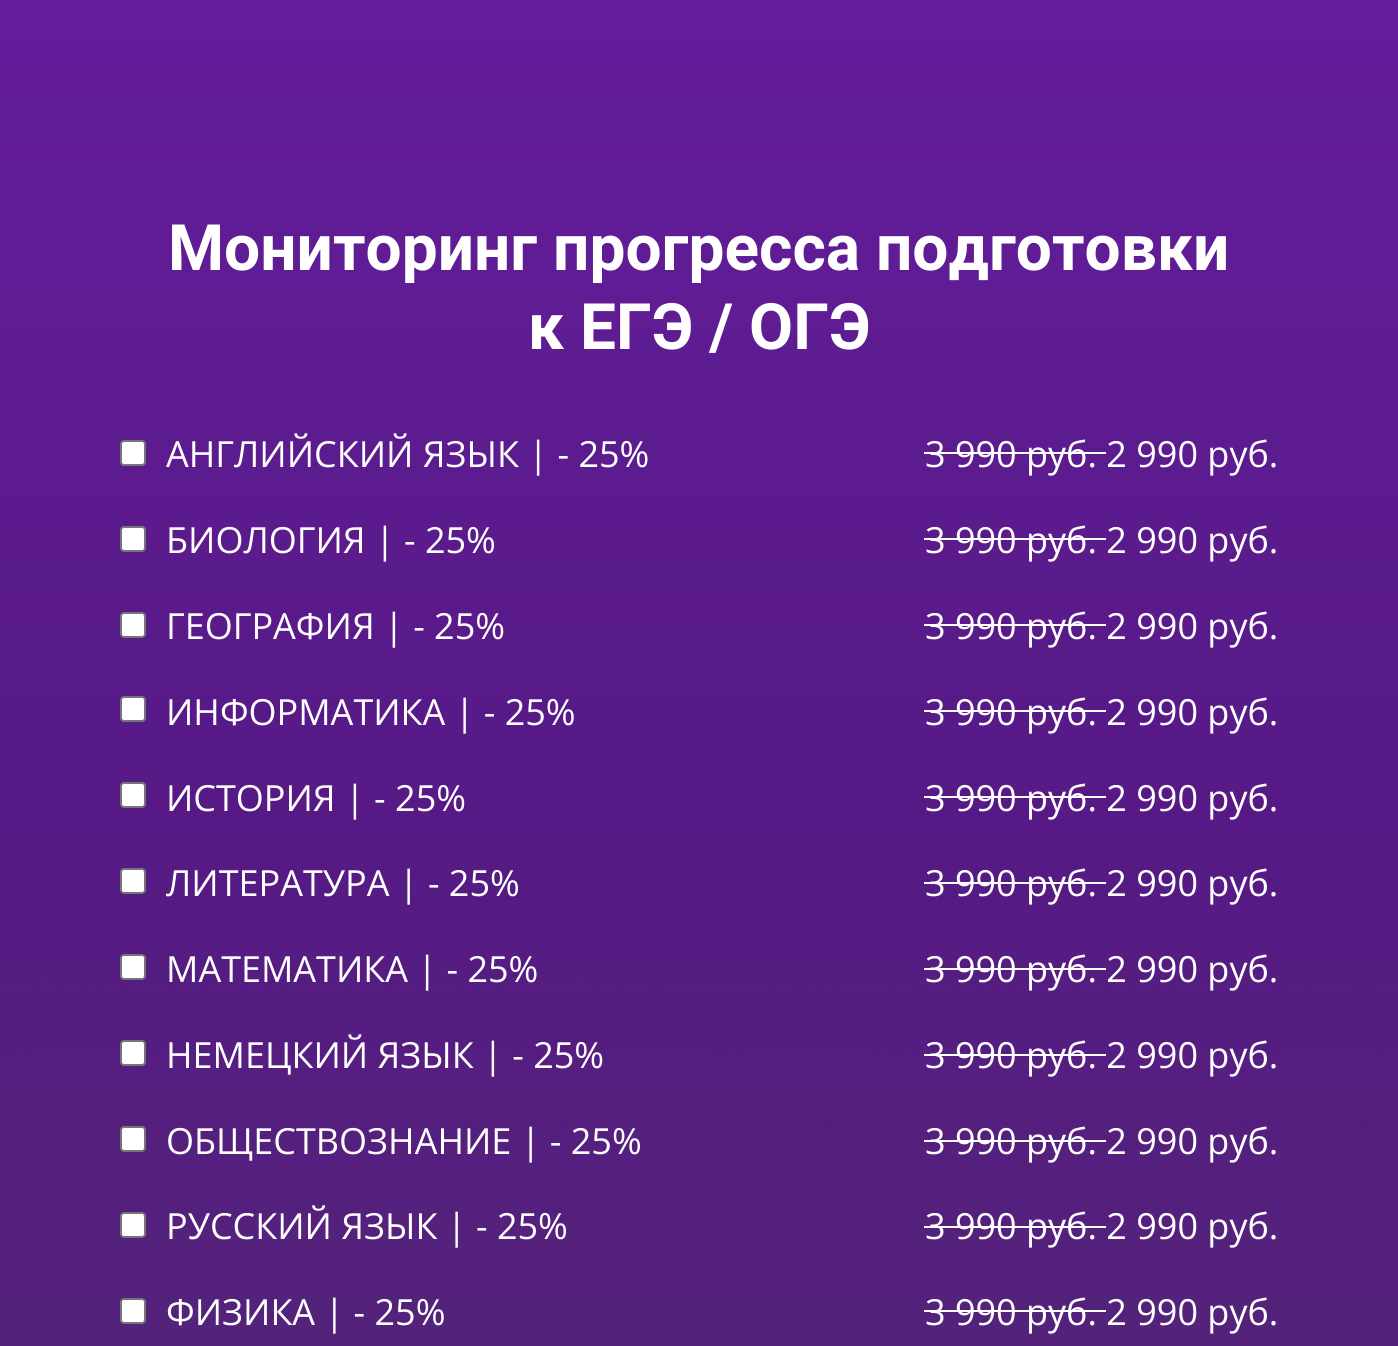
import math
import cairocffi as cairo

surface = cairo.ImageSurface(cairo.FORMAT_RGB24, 1398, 1346)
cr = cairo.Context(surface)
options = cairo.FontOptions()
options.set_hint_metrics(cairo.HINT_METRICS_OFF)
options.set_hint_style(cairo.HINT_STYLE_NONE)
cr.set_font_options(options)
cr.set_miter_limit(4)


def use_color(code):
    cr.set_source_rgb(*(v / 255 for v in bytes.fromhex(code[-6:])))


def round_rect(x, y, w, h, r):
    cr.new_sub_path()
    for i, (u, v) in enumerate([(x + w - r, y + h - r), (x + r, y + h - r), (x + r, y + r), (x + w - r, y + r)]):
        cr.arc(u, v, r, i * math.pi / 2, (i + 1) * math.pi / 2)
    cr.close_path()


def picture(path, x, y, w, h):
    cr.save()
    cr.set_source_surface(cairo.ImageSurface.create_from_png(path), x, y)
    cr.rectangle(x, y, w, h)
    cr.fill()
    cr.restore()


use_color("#ffffff")
cr.paint()
picture("img1.png", 0, 0, 1398, 1346)
cr.select_font_face("Roboto", cairo.FONT_SLANT_NORMAL, cairo.FONT_WEIGHT_BOLD)
cr.set_font_size(64)
use_color("#ffffff")
cr.move_to(168, 270)
cr.show_text("Мониторинг прогресса подготовки")
cr.move_to(528, 349)
cr.show_text("к ЕГЭ / ОГЭ")
round_rect(121, 441, 24, 24, 3)
cr.fill_preserve()
use_color("#767676")
cr.stroke()
cr.select_font_face("Open Sans")
cr.set_font_size(36)
use_color("#ffffff")
cr.move_to(166, 467)
cr.show_text("АНГЛИЙСКИЙ ЯЗЫК | - 25%")
cr.move_to(925, 467)
cr.show_text("3 990 руб. 2 990 руб.")
cr.rectangle(924, 452, 182, 2)
cr.fill()
round_rect(121, 527, 24, 24, 3)
cr.fill_preserve()
use_color("#767676")
cr.stroke()
use_color("#ffffff")
cr.move_to(166, 553)
cr.show_text("БИОЛОГИЯ | - 25%")
cr.move_to(925, 553)
cr.show_text("3 990 руб. 2 990 руб.")
cr.rectangle(924, 538, 182, 2)
cr.fill()
round_rect(121, 613, 24, 24, 3)
cr.fill_preserve()
use_color("#767676")
cr.stroke()
use_color("#ffffff")
cr.move_to(166, 639)
cr.show_text("ГЕОГРАФИЯ | - 25%")
cr.move_to(925, 639)
cr.show_text("3 990 руб. 2 990 руб.")
cr.rectangle(924, 624, 182, 2)
cr.fill()
round_rect(121, 697, 24, 24, 3)
cr.fill_preserve()
use_color("#767676")
cr.stroke()
use_color("#ffffff")
cr.move_to(166, 725)
cr.show_text("ИНФОРМАТИКА | - 25%")
cr.move_to(925, 725)
cr.show_text("3 990 руб. 2 990 руб.")
cr.rectangle(924, 710, 182, 2)
cr.fill()
round_rect(121, 783, 24, 24, 3)
cr.fill_preserve()
use_color("#767676")
cr.stroke()
use_color("#ffffff")
cr.move_to(166, 811)
cr.show_text("ИСТОРИЯ | - 25%")
cr.move_to(925, 811)
cr.show_text("3 990 руб. 2 990 руб.")
cr.rectangle(924, 796, 182, 2)
cr.fill()
round_rect(121, 869, 24, 24, 3)
cr.fill_preserve()
use_color("#767676")
cr.stroke()
use_color("#ffffff")
cr.move_to(166, 896)
cr.show_text("ЛИТЕРАТУРА | - 25%")
cr.move_to(925, 896)
cr.show_text("3 990 руб. 2 990 руб.")
cr.rectangle(924, 882, 182, 2)
cr.fill()
round_rect(121, 955, 24, 24, 3)
cr.fill_preserve()
use_color("#767676")
cr.stroke()
use_color("#ffffff")
cr.move_to(166, 982)
cr.show_text("МАТЕМАТИКА | - 25%")
cr.move_to(925, 982)
cr.show_text("3 990 руб. 2 990 руб.")
cr.rectangle(924, 968, 182, 2)
cr.fill()
round_rect(121, 1041, 24, 24, 3)
cr.fill_preserve()
use_color("#767676")
cr.stroke()
use_color("#ffffff")
cr.move_to(166, 1068)
cr.show_text("НЕМЕЦКИЙ ЯЗЫК | - 25%")
cr.move_to(925, 1068)
cr.show_text("3 990 руб. 2 990 руб.")
cr.rectangle(924, 1054, 182, 2)
cr.fill()
round_rect(121, 1127, 24, 24, 3)
cr.fill_preserve()
use_color("#767676")
cr.stroke()
use_color("#ffffff")
cr.move_to(166, 1154)
cr.show_text("ОБЩЕСТВОЗНАНИЕ | - 25%")
cr.move_to(925, 1154)
cr.show_text("3 990 руб. 2 990 руб.")
cr.rectangle(924, 1140, 182, 2)
cr.fill()
round_rect(121, 1213, 24, 24, 3)
cr.fill_preserve()
use_color("#767676")
cr.stroke()
use_color("#ffffff")
cr.move_to(166, 1239)
cr.show_text("РУССКИЙ ЯЗЫК | - 25%")
cr.move_to(925, 1239)
cr.show_text("3 990 руб. 2 990 руб.")
cr.rectangle(924, 1226, 182, 2)
cr.fill()
round_rect(121, 1299, 24, 24, 3)
cr.fill_preserve()
use_color("#767676")
cr.stroke()
use_color("#ffffff")
cr.move_to(166, 1325)
cr.show_text("ФИЗИКА | - 25%")
cr.move_to(925, 1325)
cr.show_text("3 990 руб. 2 990 руб.")
cr.rectangle(924, 1310, 182, 2)
cr.fill()
surface.write_to_png("result.png")
